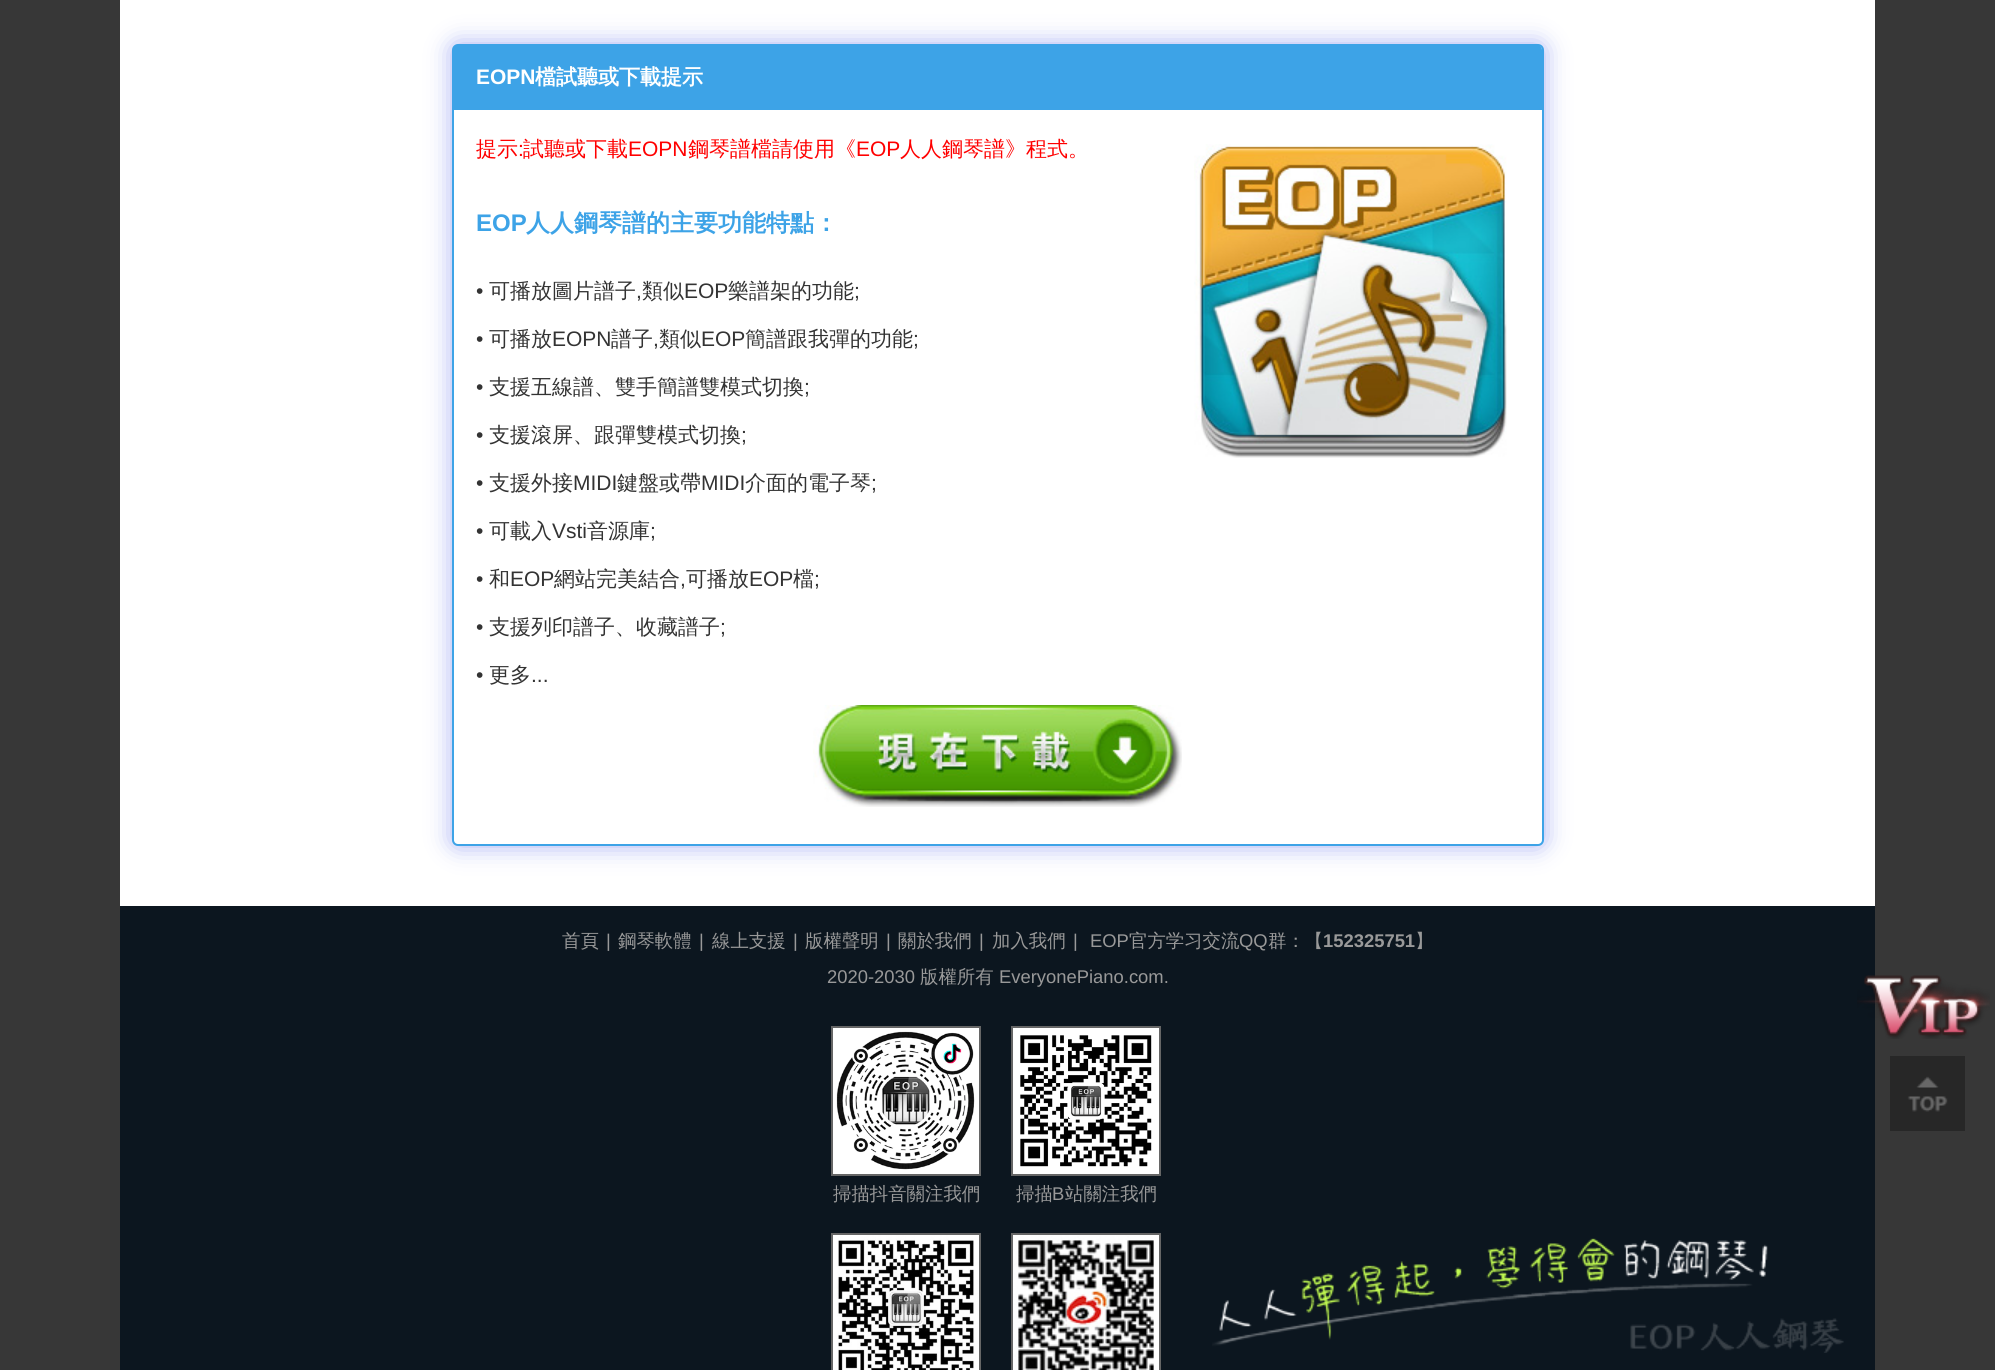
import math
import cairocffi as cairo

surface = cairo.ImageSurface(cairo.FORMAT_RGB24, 1995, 1370)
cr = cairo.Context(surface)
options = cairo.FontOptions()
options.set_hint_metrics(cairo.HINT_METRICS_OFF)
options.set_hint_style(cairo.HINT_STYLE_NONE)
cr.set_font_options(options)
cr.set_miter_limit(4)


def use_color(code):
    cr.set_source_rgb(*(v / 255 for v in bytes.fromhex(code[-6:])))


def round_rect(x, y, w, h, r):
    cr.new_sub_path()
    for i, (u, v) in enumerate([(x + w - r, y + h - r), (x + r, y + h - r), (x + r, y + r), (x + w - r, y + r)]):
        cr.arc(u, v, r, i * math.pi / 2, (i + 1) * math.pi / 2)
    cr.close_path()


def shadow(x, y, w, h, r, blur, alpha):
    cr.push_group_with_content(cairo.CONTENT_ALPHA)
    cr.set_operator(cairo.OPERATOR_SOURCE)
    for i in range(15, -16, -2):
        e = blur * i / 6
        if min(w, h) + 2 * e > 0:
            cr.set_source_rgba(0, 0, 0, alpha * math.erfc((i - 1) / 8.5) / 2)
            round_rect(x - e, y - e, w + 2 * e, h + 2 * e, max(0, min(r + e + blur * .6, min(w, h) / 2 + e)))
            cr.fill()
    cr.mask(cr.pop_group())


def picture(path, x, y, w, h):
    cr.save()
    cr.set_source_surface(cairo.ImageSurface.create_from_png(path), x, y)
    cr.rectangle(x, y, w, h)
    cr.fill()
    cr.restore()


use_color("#373737")
cr.paint()
use_color("#ffffff")
cr.rectangle(120, 0, 1755, 906)
cr.fill()
use_color("#a7b0f3")
shadow(452, 44, 1092, 802, 6, 12, 1)
use_color("#ffffff")
round_rect(453, 45, 1090, 800, 5)
cr.fill_preserve()
use_color("#3da3e7")
cr.stroke()
cr.new_path()
cr.move_to(458, 45)
cr.line_to(1537, 45)
cr.curve_to(1540, 45, 1542, 47, 1542, 50)
cr.line_to(1542, 110)
cr.line_to(453, 110)
cr.line_to(453, 50)
cr.curve_to(453, 47, 455, 45, 458, 45)
cr.close_path()
cr.fill()
cr.select_font_face("Liberation Sans", cairo.FONT_SLANT_NORMAL, cairo.FONT_WEIGHT_BOLD)
cr.set_font_size(21)
use_color("#ffffff")
cr.move_to(476, 84)
cr.show_text("EOPN")
cr.select_font_face("WenQuanYi Zen Hei", cairo.FONT_SLANT_NORMAL, cairo.FONT_WEIGHT_BOLD)
cr.move_to(535, 84)
cr.show_text("檔試聽或下載提示")
cr.select_font_face("WenQuanYi Zen Hei Medium")
use_color("#ff0000")
cr.move_to(476, 156)
cr.show_text("提示")
cr.select_font_face("Liberation Sans")
cr.move_to(518, 156)
cr.show_text(":")
cr.select_font_face("WenQuanYi Zen Hei Medium")
cr.move_to(523, 156)
cr.show_text("試聽或下載")
cr.select_font_face("Liberation Sans")
cr.move_to(628, 156)
cr.show_text("EOPN")
cr.select_font_face("WenQuanYi Zen Hei Medium")
cr.move_to(688, 156)
cr.show_text("鋼琴譜檔請使用《")
cr.select_font_face("Liberation Sans")
cr.move_to(856, 156)
cr.show_text("EOP")
cr.select_font_face("WenQuanYi Zen Hei Medium")
cr.move_to(900, 156)
cr.show_text("人人鋼琴譜》程式。")
picture("img1.png", 1194, 144, 313, 314)
cr.select_font_face("Liberation Sans", cairo.FONT_SLANT_NORMAL, cairo.FONT_WEIGHT_BOLD)
cr.set_font_size(24)
use_color("#3da3e7")
cr.move_to(476, 231)
cr.show_text("EOP")
cr.select_font_face("WenQuanYi Zen Hei", cairo.FONT_SLANT_NORMAL, cairo.FONT_WEIGHT_BOLD)
cr.move_to(526, 231)
cr.show_text("人人鋼琴譜的主要功能特點：")
cr.select_font_face("Liberation Sans")
cr.set_font_size(21)
use_color("#333333")
cr.move_to(476, 298)
cr.show_text("•")
cr.select_font_face("WenQuanYi Zen Hei Medium")
cr.move_to(489, 298)
cr.show_text("可播放圖片譜子")
cr.move_to(642, 298)
cr.show_text("類似")
cr.select_font_face("Liberation Sans")
cr.move_to(684, 298)
cr.show_text("EOP")
cr.select_font_face("WenQuanYi Zen Hei Medium")
cr.move_to(728, 298)
cr.show_text("樂譜架的功能")
cr.select_font_face("Liberation Sans")
cr.move_to(854, 298)
cr.show_text(";")
cr.move_to(636, 298)
cr.show_text(",")
cr.move_to(476, 346)
cr.show_text("•")
cr.select_font_face("WenQuanYi Zen Hei Medium")
cr.move_to(489, 346)
cr.show_text("可播放")
cr.select_font_face("Liberation Sans")
cr.move_to(552, 346)
cr.show_text("EOPN")
cr.select_font_face("WenQuanYi Zen Hei Medium")
cr.move_to(611, 346)
cr.show_text("譜子")
cr.move_to(659, 346)
cr.show_text("類似")
cr.select_font_face("Liberation Sans")
cr.move_to(701, 346)
cr.show_text("EOP")
cr.select_font_face("WenQuanYi Zen Hei Medium")
cr.move_to(745, 346)
cr.show_text("簡譜跟我彈的功能")
cr.select_font_face("Liberation Sans")
cr.move_to(913, 346)
cr.show_text(";")
cr.move_to(653, 346)
cr.show_text(",")
cr.move_to(476, 394)
cr.show_text("•")
cr.select_font_face("WenQuanYi Zen Hei Medium")
cr.move_to(489, 394)
cr.show_text("支援五線譜、雙手簡譜雙模式切換")
cr.select_font_face("Liberation Sans")
cr.move_to(804, 394)
cr.show_text(";")
cr.move_to(476, 442)
cr.show_text("•")
cr.select_font_face("WenQuanYi Zen Hei Medium")
cr.move_to(489, 442)
cr.show_text("支援滾屏、跟彈雙模式切換")
cr.select_font_face("Liberation Sans")
cr.move_to(741, 442)
cr.show_text(";")
cr.move_to(476, 490)
cr.show_text("•")
cr.select_font_face("WenQuanYi Zen Hei Medium")
cr.move_to(489, 490)
cr.show_text("支援外接")
cr.select_font_face("Liberation Sans")
cr.move_to(573, 490)
cr.show_text("MIDI")
cr.select_font_face("WenQuanYi Zen Hei Medium")
cr.move_to(617, 490)
cr.show_text("鍵盤或帶")
cr.select_font_face("Liberation Sans")
cr.move_to(701, 490)
cr.show_text("MIDI")
cr.select_font_face("WenQuanYi Zen Hei Medium")
cr.move_to(745, 490)
cr.show_text("介面的電子琴")
cr.select_font_face("Liberation Sans")
cr.move_to(871, 490)
cr.show_text(";")
cr.move_to(476, 538)
cr.show_text("•")
cr.select_font_face("WenQuanYi Zen Hei Medium")
cr.move_to(489, 538)
cr.show_text("可載入")
cr.select_font_face("Liberation Sans")
cr.move_to(552, 538)
cr.show_text("Vsti")
cr.select_font_face("WenQuanYi Zen Hei Medium")
cr.move_to(587, 538)
cr.show_text("音源庫")
cr.select_font_face("Liberation Sans")
cr.move_to(650, 538)
cr.show_text(";")
cr.move_to(476, 586)
cr.show_text("•")
cr.select_font_face("WenQuanYi Zen Hei Medium")
cr.move_to(489, 586)
cr.show_text("和")
cr.select_font_face("Liberation Sans")
cr.move_to(510, 586)
cr.show_text("EOP")
cr.select_font_face("WenQuanYi Zen Hei Medium")
cr.move_to(554, 586)
cr.show_text("網站完美結合")
cr.move_to(686, 586)
cr.show_text("可播放")
cr.select_font_face("Liberation Sans")
cr.move_to(749, 586)
cr.show_text("EOP")
cr.select_font_face("WenQuanYi Zen Hei Medium")
cr.move_to(793, 586)
cr.show_text("檔")
cr.select_font_face("Liberation Sans")
cr.move_to(814, 586)
cr.show_text(";")
cr.move_to(680, 586)
cr.show_text(",")
cr.move_to(476, 634)
cr.show_text("•")
cr.select_font_face("WenQuanYi Zen Hei Medium")
cr.move_to(489, 634)
cr.show_text("支援列印譜子、收藏譜子")
cr.select_font_face("Liberation Sans")
cr.move_to(720, 634)
cr.show_text(";")
cr.move_to(476, 682)
cr.show_text("•")
cr.select_font_face("WenQuanYi Zen Hei Medium")
cr.move_to(489, 682)
cr.show_text("更多")
cr.select_font_face("Liberation Sans")
cr.move_to(531, 682)
cr.show_text("...")
picture("img2.png", 813, 705, 369, 102)
use_color("#0c161f")
cr.rectangle(120, 906, 1755, 464)
cr.fill()
picture("img3.png", 1212, 1238, 632, 115)
cr.select_font_face("WenQuanYi Zen Hei Medium")
cr.set_font_size(18.4)
use_color("#999999")
cr.move_to(562, 947)
cr.show_text("首頁")
cr.select_font_face("Liberation Sans")
cr.move_to(606, 947)
cr.show_text("|")
cr.select_font_face("WenQuanYi Zen Hei Medium")
cr.move_to(618, 947)
cr.show_text("鋼琴軟體")
cr.select_font_face("Liberation Sans")
cr.move_to(699, 947)
cr.show_text("|")
cr.select_font_face("WenQuanYi Zen Hei Medium")
cr.move_to(712, 947)
cr.show_text("線上支援")
cr.select_font_face("Liberation Sans")
cr.move_to(793, 947)
cr.show_text("|")
cr.select_font_face("WenQuanYi Zen Hei Medium")
cr.move_to(805, 947)
cr.show_text("版權聲明")
cr.select_font_face("Liberation Sans")
cr.move_to(886, 947)
cr.show_text("|")
cr.select_font_face("WenQuanYi Zen Hei Medium")
cr.move_to(898, 947)
cr.show_text("關於我們")
cr.select_font_face("Liberation Sans")
cr.move_to(979, 947)
cr.show_text("|")
cr.select_font_face("WenQuanYi Zen Hei Medium")
cr.move_to(992, 947)
cr.show_text("加入我們")
cr.select_font_face("Liberation Sans")
cr.move_to(1073, 947)
cr.show_text("|")
cr.move_to(1090, 947)
cr.show_text("EOP")
cr.select_font_face("WenQuanYi Zen Hei Medium")
cr.move_to(1129, 947)
cr.show_text("官方学习交流")
cr.select_font_face("Liberation Sans")
cr.move_to(1239, 947)
cr.show_text("QQ")
cr.select_font_face("WenQuanYi Zen Hei Medium")
cr.move_to(1268, 947)
cr.show_text("群：【")
cr.select_font_face("Liberation Sans", cairo.FONT_SLANT_NORMAL, cairo.FONT_WEIGHT_BOLD)
cr.move_to(1323, 947)
cr.show_text("152325751")
cr.select_font_face("WenQuanYi Zen Hei Medium")
cr.move_to(1415, 947)
cr.show_text("】")
cr.select_font_face("Liberation Sans")
cr.move_to(827, 983)
cr.show_text("2020-2030")
cr.select_font_face("WenQuanYi Zen Hei Medium")
cr.move_to(920, 983)
cr.show_text("版權所有")
cr.select_font_face("Liberation Sans")
cr.move_to(999, 983)
cr.show_text("EveryonePiano.com.")
picture("img4.png", 833, 1028, 146, 146)
cr.rectangle(832, 1027, 148, 148)
use_color("#666666")
cr.stroke()
cr.select_font_face("WenQuanYi Zen Hei Medium")
use_color("#999999")
cr.move_to(833, 1200)
cr.show_text("掃描抖音關注我們")
picture("img5.png", 1013, 1028, 146, 146)
cr.rectangle(1012, 1027, 148, 148)
use_color("#666666")
cr.stroke()
use_color("#999999")
cr.move_to(1016, 1200)
cr.show_text("掃描")
cr.select_font_face("Liberation Sans")
cr.move_to(1052, 1200)
cr.show_text("B")
cr.select_font_face("WenQuanYi Zen Hei Medium")
cr.move_to(1065, 1200)
cr.show_text("站關注我們")
picture("img6.png", 833, 1235, 146, 135)
cr.rectangle(832, 1234, 148, 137)
use_color("#666666")
cr.stroke()
picture("img7.png", 1013, 1235, 146, 135)
cr.rectangle(1012, 1234, 148, 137)
cr.stroke()
picture("img8.png", 1857, 975, 133, 64)
picture("img9.png", 1890, 1056, 75, 75)
surface.write_to_png("result.png")
